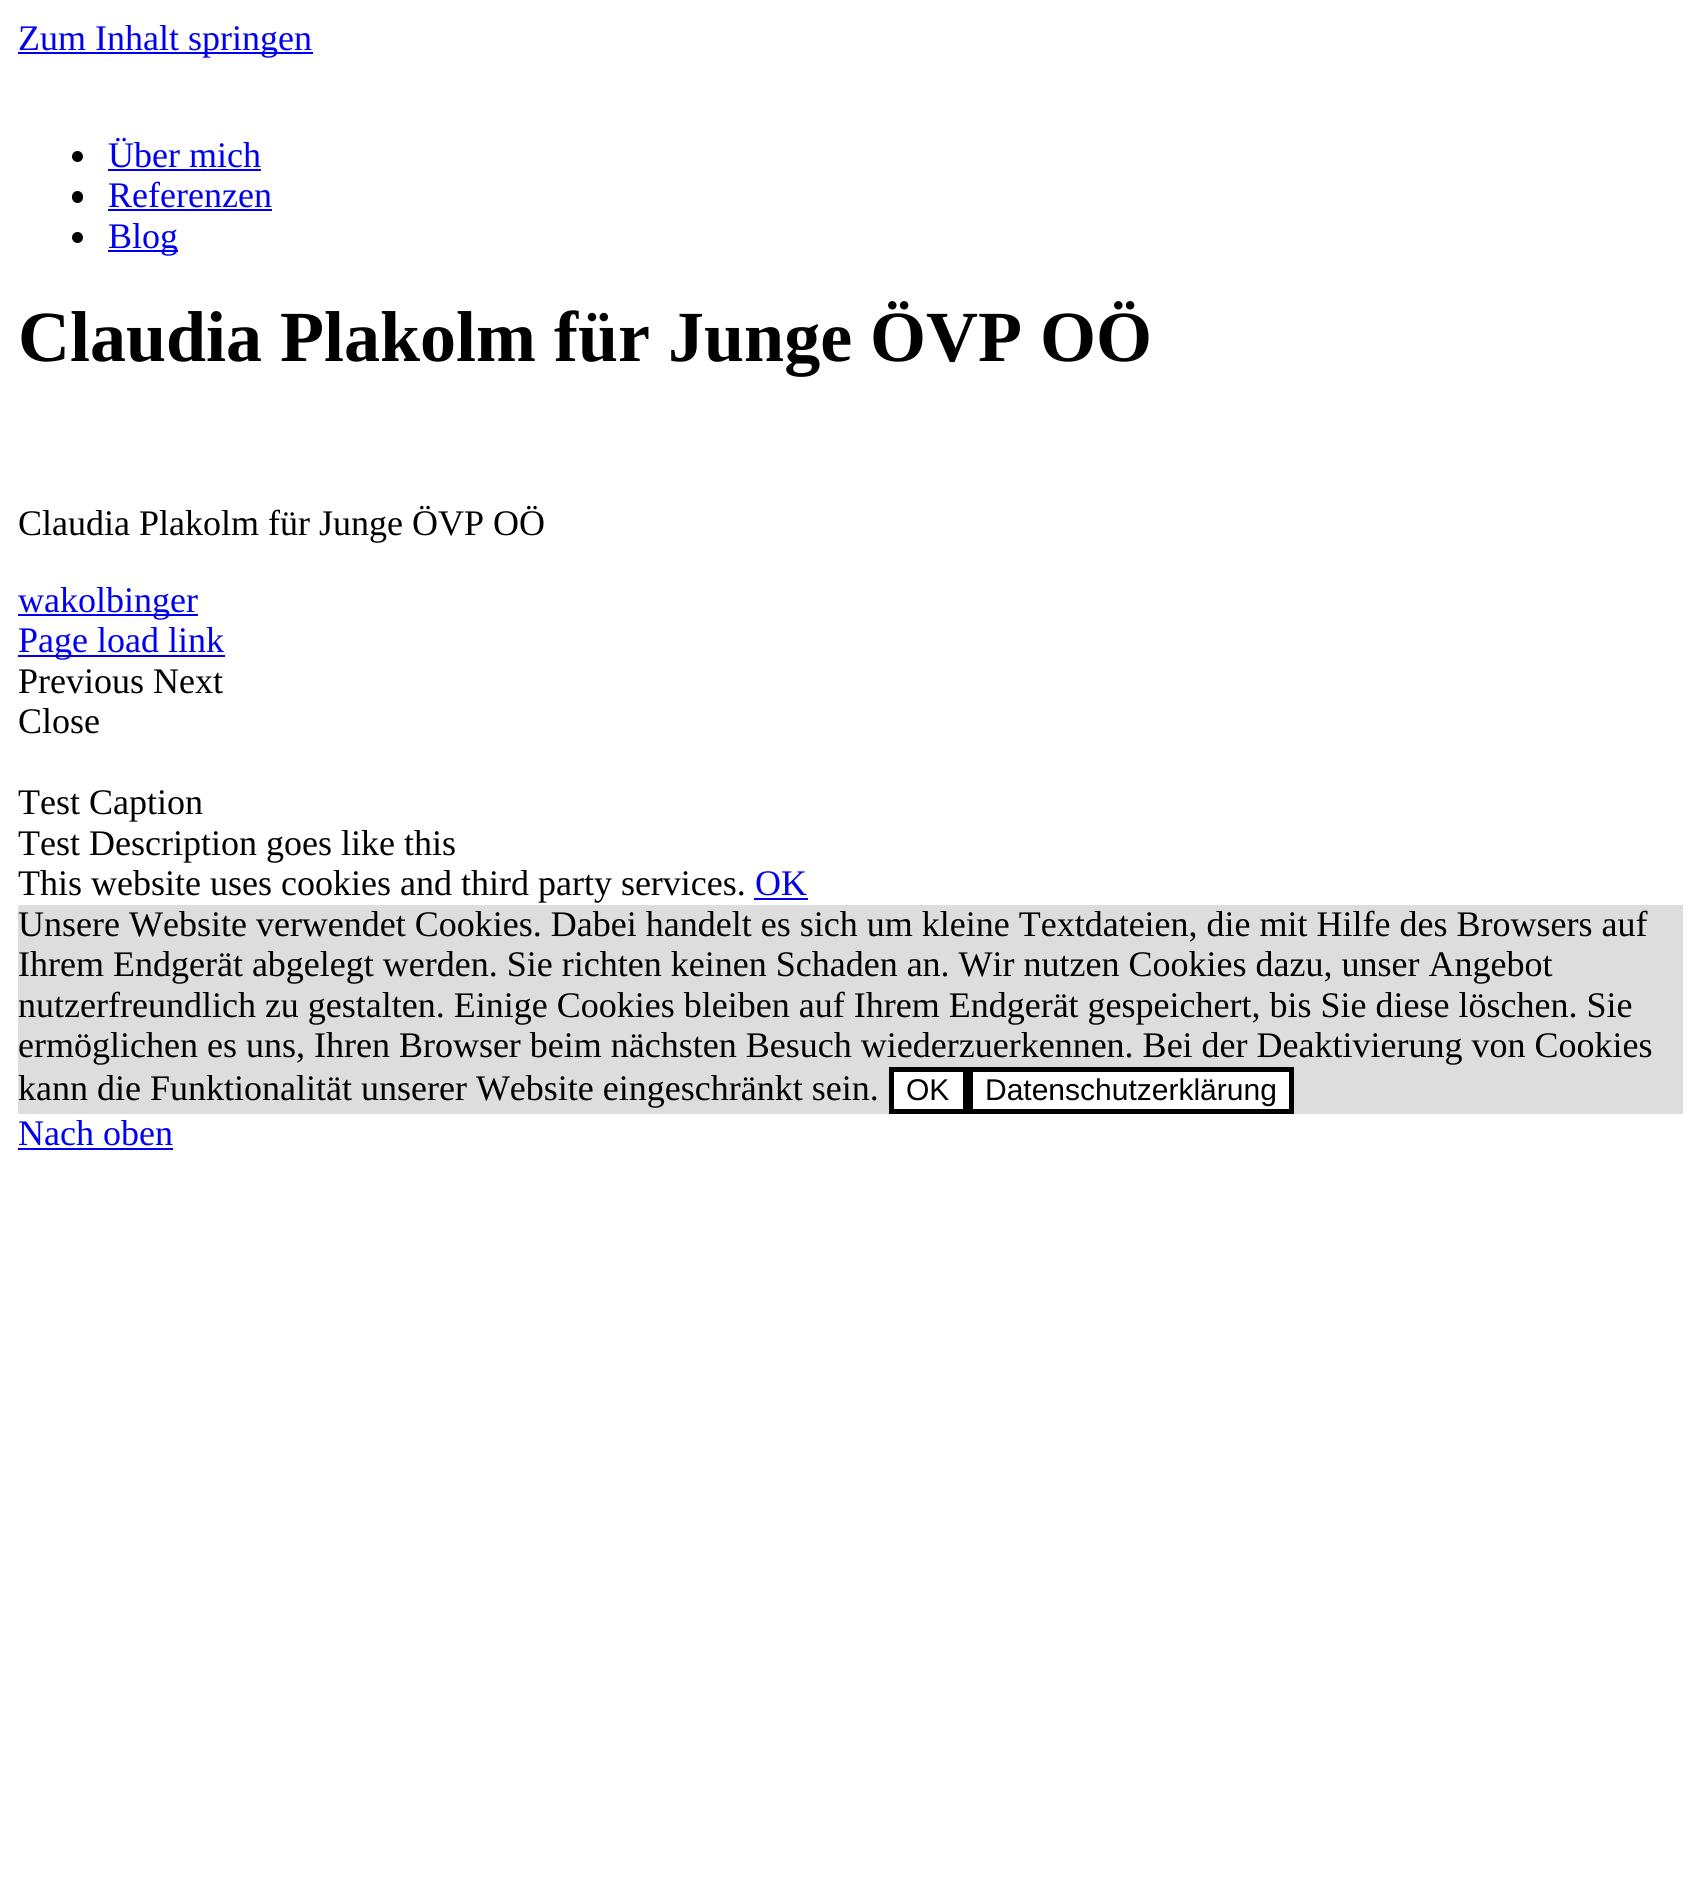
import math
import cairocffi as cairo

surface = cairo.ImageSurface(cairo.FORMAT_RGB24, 1699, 1901)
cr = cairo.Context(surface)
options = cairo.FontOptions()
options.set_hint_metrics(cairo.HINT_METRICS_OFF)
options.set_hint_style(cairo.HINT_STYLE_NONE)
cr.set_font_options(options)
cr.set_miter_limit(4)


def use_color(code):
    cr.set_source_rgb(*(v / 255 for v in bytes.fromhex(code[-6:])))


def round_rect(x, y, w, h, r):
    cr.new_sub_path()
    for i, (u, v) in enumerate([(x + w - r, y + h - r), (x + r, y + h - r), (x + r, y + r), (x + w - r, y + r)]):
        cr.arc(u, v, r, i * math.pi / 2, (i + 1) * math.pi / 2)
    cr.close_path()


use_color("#ffffff")
cr.paint()
use_color("#0000ee")
cr.rectangle(18, 52, 295, 2)
cr.fill()
cr.select_font_face("Liberation Serif")
cr.set_font_size(36)
cr.move_to(18, 50)
cr.show_text("Zum Inhalt springen")
use_color("#000000")
cr.new_path()
cr.arc(77.5, 156.5, 5.5, 0, 2 * math.pi)
cr.fill()
use_color("#0000ee")
cr.move_to(108, 167)
cr.show_text("Über mich")
cr.rectangle(108, 169, 153, 2)
cr.fill()
use_color("#000000")
round_rect(72, 191, 11, 12, 5.5)
cr.fill()
use_color("#0000ee")
cr.move_to(108, 207)
cr.show_text("Referenzen")
cr.rectangle(108, 209, 164, 2)
cr.fill()
use_color("#000000")
cr.arc(77.5, 237.5, 5.5, 0, 2 * math.pi)
cr.fill()
use_color("#0000ee")
cr.rectangle(108, 250, 70, 2)
cr.fill()
cr.move_to(108, 248)
cr.show_text("Blog")
cr.select_font_face("Liberation Serif", cairo.FONT_SLANT_NORMAL, cairo.FONT_WEIGHT_BOLD)
cr.set_font_size(72)
use_color("#000000")
cr.move_to(18, 361)
cr.show_text("Claudia Plakolm für Junge ÖVP OÖ")
cr.select_font_face("Liberation Serif")
cr.set_font_size(36)
cr.move_to(18, 535)
cr.show_text("Claudia Plakolm für Junge ÖVP OÖ")
use_color("#0000ee")
cr.rectangle(18, 614, 180, 2)
cr.fill()
cr.move_to(18, 612)
cr.show_text("wakolbinger")
cr.rectangle(18, 655, 207, 2)
cr.fill()
cr.move_to(18, 652)
cr.show_text("Page load link")
use_color("#000000")
cr.move_to(18, 693)
cr.show_text("Previous Next")
cr.move_to(18, 733)
cr.show_text("Close")
cr.move_to(18, 814)
cr.show_text("Test Caption")
cr.move_to(18, 855)
cr.show_text("Test Description goes like this")
cr.move_to(18, 895)
cr.show_text("This website uses cookies and third party services.")
use_color("#0000ee")
cr.move_to(755, 895)
cr.show_text("OK")
cr.rectangle(754, 898, 54, 2)
cr.fill()
use_color("#dddddd")
cr.rectangle(18, 905, 1665, 209)
cr.fill()
use_color("#000000")
cr.move_to(18, 936)
cr.show_text("Unsere Website verwendet Cookies. Dabei handelt es sich um kleine Textdateien, die mit Hilfe des Browsers auf")
cr.move_to(18, 976)
cr.show_text("Ihrem Endgerät abgelegt werden. Sie richten keinen Schaden an. Wir nutzen Cookies dazu, unser Angebot")
cr.move_to(18, 1017)
cr.show_text("nutzerfreundlich zu gestalten. Einige Cookies bleiben auf Ihrem Endgerät gespeichert, bis Sie diese löschen. Sie")
cr.move_to(18, 1057)
cr.show_text("ermöglichen es uns, Ihren Browser beim nächsten Besuch wiederzuerkennen. Bei der Deaktivierung von Cookies")
cr.move_to(18, 1100)
cr.show_text("kann die Funktionalität unserer Website eingeschränkt sein.")
use_color("#ffffff")
cr.rectangle(891.5, 1069.5, 74, 42)
cr.fill_preserve()
use_color("#000000")
cr.set_line_width(5)
cr.stroke()
cr.select_font_face("Liberation Sans")
cr.set_font_size(30)
cr.move_to(906, 1100)
cr.show_text("OK")
use_color("#ffffff")
cr.rectangle(970.5, 1069.5, 321, 42)
cr.fill_preserve()
use_color("#000000")
cr.stroke()
cr.move_to(985, 1100)
cr.show_text("Datenschutzerklärung")
cr.select_font_face("Liberation Serif")
cr.set_font_size(36)
use_color("#0000ee")
cr.move_to(18, 1145)
cr.show_text("Nach oben")
cr.rectangle(18, 1148, 155, 2)
cr.fill()
surface.write_to_png("result.png")
